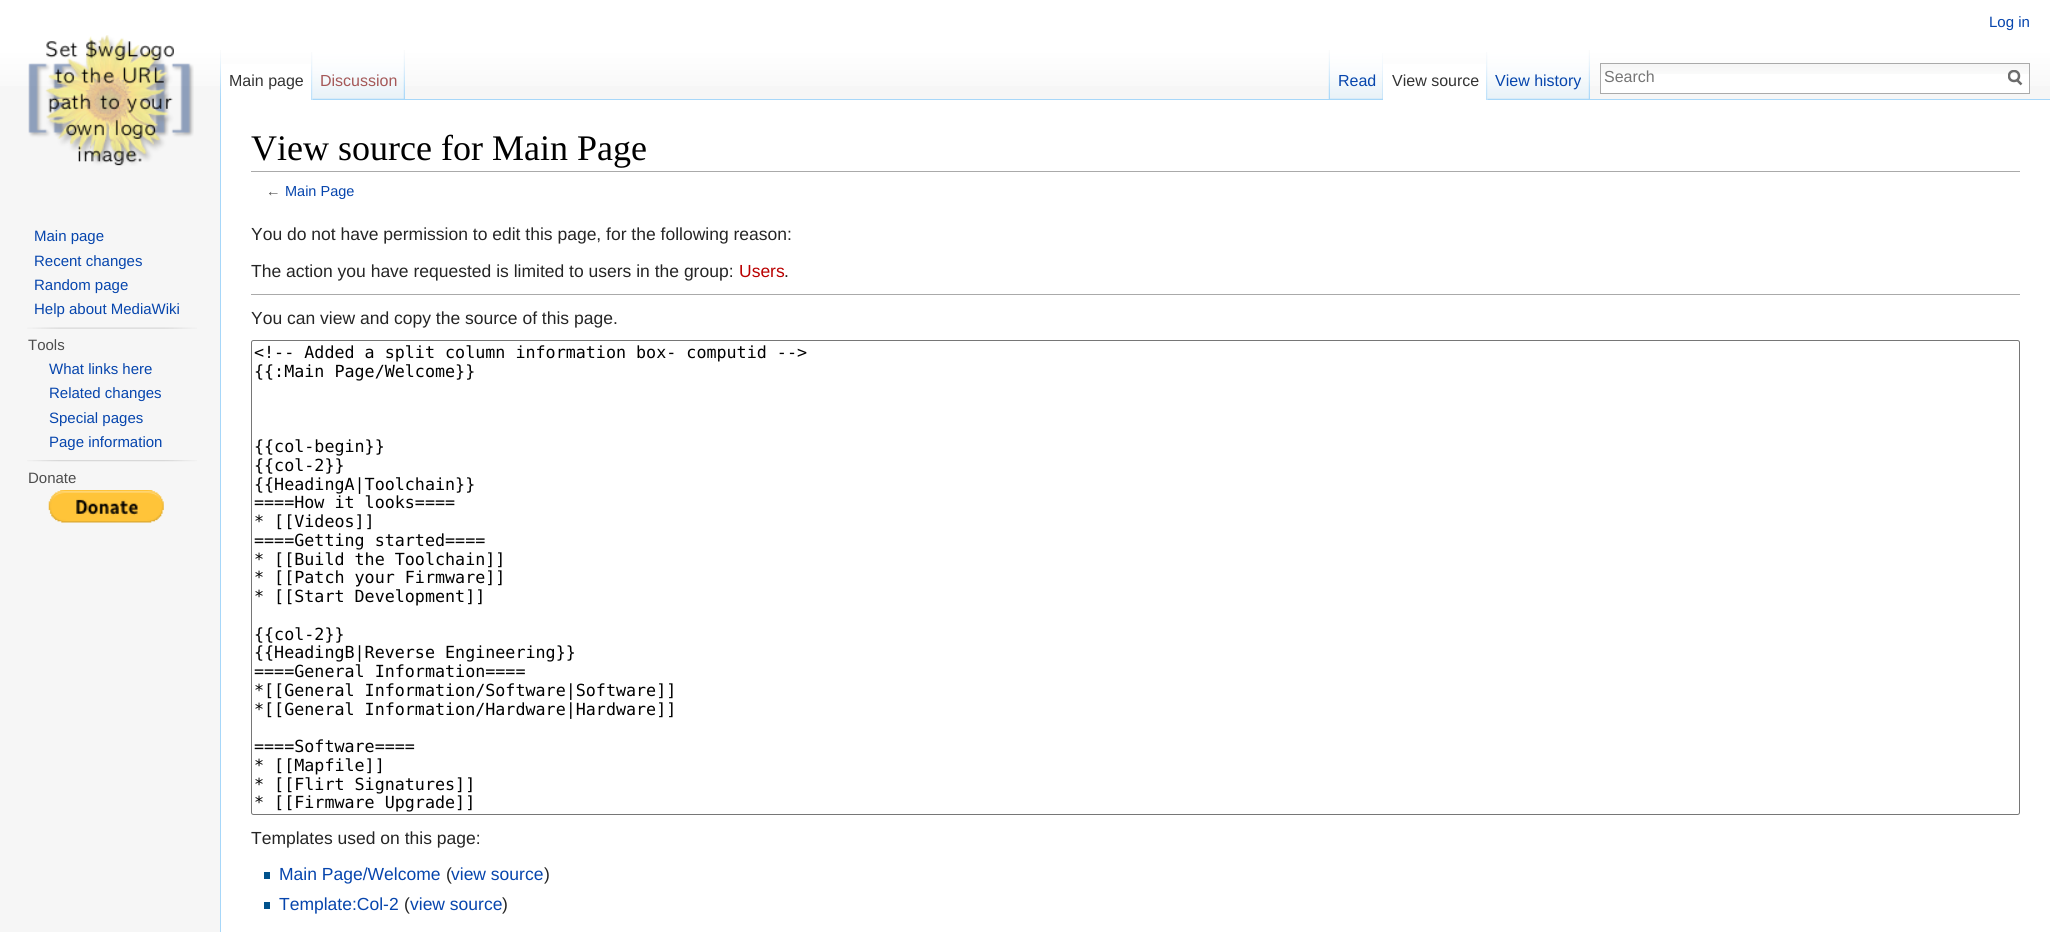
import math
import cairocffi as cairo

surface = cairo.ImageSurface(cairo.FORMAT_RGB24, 2050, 932)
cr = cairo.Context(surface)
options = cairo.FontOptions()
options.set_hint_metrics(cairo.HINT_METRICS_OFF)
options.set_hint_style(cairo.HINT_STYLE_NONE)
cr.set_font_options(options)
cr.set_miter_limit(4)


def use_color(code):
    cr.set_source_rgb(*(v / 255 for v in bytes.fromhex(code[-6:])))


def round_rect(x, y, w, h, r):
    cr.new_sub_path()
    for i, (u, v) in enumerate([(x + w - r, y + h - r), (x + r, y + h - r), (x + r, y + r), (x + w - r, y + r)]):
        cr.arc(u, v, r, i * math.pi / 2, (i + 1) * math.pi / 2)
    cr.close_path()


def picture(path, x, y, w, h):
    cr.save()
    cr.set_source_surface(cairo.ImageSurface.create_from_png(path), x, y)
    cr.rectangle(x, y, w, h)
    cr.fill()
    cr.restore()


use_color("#f6f6f6")
cr.paint()
gradient = cairo.LinearGradient(1025, 0, 1025, 100)
gradient.add_color_stop_rgba(0.5, 1, 1, 1, 1)
gradient.add_color_stop_rgba(1, 0.965, 0.965, 0.965, 1)
cr.set_source(gradient)
cr.rectangle(0, 0, 2050, 86)
cr.fill()
cr.select_font_face("Liberation Sans")
cr.set_font_size(15)
use_color("#0645ad")
cr.move_to(1989, 27)
cr.show_text("Log in")
picture("img1.png", 220, 50, 1, 49)
use_color("#ffffff")
cr.rectangle(221, 64, 92, 36)
cr.fill()
picture("img2.png", 311, 52, 2, 48)
cr.set_font_size(16)
use_color("#333333")
cr.move_to(229, 86)
cr.show_text("Main page")
picture("img3.png", 312, 50, 93, 50)
picture("img4.png", 403, 50, 2, 49)
use_color("#a55858")
cr.move_to(320, 86)
cr.show_text("Discussion")
picture("img5.png", 1328, 50, 2, 49)
use_color("#a7d7f9")
cr.rectangle(405, 99, 1645, 1)
cr.fill()
picture("img6.png", 1330, 50, 53, 50)
picture("img7.png", 1382, 53, 1, 47)
use_color("#0645ad")
cr.move_to(1338, 86)
cr.show_text("Read")
use_color("#ffffff")
cr.rectangle(1383, 64, 105, 36)
cr.fill()
picture("img2.png", 1486, 52, 2, 48)
use_color("#333333")
cr.move_to(1392, 86)
cr.show_text("View source")
picture("img8.png", 1487, 50, 103, 50)
picture("img4.png", 1588, 50, 2, 49)
use_color("#0645ad")
cr.move_to(1495, 86)
cr.show_text("View history")
use_color("#ffffff")
cr.rectangle(1601, 74, 428, 19)
cr.fill()
picture("img9.png", 1601, 64, 428, 10)
cr.rectangle(1600.5, 63.5, 429, 30)
use_color("#aaaaaa")
cr.set_line_width(1)
cr.stroke()
use_color("#757575")
cr.move_to(1604, 82)
cr.show_text("Search")
cr.new_path()
cr.move_to(2021.5, 84.5)
cr.line_to(2016.5, 79.5)
use_color("#6c6c6c")
cr.set_line_width(2.5)
cr.stroke()
cr.save()
cr.rectangle(2008, 70, 15, 16)
cr.clip()
cr.arc(2014, 76, 5, 0, 2 * math.pi)
cr.stroke()
cr.restore()
picture("img10.png", 28, 35, 166, 131)
cr.set_font_size(15)
use_color("#0645ad")
cr.move_to(34, 241)
cr.show_text("Main page")
cr.move_to(34, 266)
cr.show_text("Recent changes")
cr.move_to(34, 290)
cr.show_text("Random page")
cr.move_to(34, 314)
cr.show_text("Help about MediaWiki")
picture("img11.png", 27, 327, 170, 2)
use_color("#4d4d4d")
cr.move_to(28, 350)
cr.show_text("Tools")
use_color("#0645ad")
cr.move_to(49, 374)
cr.show_text("What links here")
cr.move_to(49, 398)
cr.show_text("Related changes")
cr.move_to(49, 423)
cr.show_text("Special pages")
cr.move_to(49, 447)
cr.show_text("Page information")
picture("img12.png", 27, 460, 170, 2)
use_color("#4d4d4d")
cr.move_to(28, 483)
cr.show_text("Donate")
picture("img13.png", 48, 490, 116, 33)
use_color("#ffffff")
cr.rectangle(221, 100, 1829, 832)
cr.fill()
use_color("#a7d7f9")
cr.rectangle(220, 99, 1, 833)
cr.fill()
use_color("#aaaaaa")
cr.rectangle(251, 171, 1769, 1)
cr.fill()
cr.select_font_face("Liberation Serif")
cr.set_font_size(36)
use_color("#000000")
cr.move_to(251, 160)
cr.show_text("View source for Main Page")
cr.select_font_face("Liberation Sans")
cr.set_font_size(14.5)
use_color("#545454")
cr.move_to(266, 196)
cr.show_text("←")
use_color("#0645ad")
cr.move_to(285, 196)
cr.show_text("Main Page")
cr.set_font_size(17.5)
use_color("#252525")
cr.move_to(251, 240)
cr.show_text("You do not have permission to edit this page, for the following reason:")
cr.move_to(251, 277)
cr.show_text("The action you have requested is limited to users in the group:")
use_color("#ba0000")
cr.move_to(739, 277)
cr.show_text("Users")
use_color("#252525")
cr.move_to(784, 277)
cr.show_text(".")
use_color("#aaaaaa")
cr.rectangle(251, 294, 1769, 1)
cr.fill()
use_color("#252525")
cr.move_to(251, 324)
cr.show_text("You can view and copy the source of this page.")
round_rect(251.5, 340.5, 1768, 474, 2)
use_color("#767676")
cr.set_line_width(1)
cr.stroke()
cr.select_font_face("DejaVu Sans Mono")
cr.set_font_size(16.7)
use_color("#000000")
cr.move_to(254, 358)
cr.show_text("<!-- Added a split column information box- computid -->")
cr.move_to(254, 377)
cr.show_text("{{:Main Page/Welcome}}")
cr.move_to(254, 452)
cr.show_text("{{col-begin}}")
cr.move_to(254, 471)
cr.show_text("{{col-2}}")
cr.move_to(254, 490)
cr.show_text("{{HeadingA|Toolchain}}")
cr.move_to(254, 508)
cr.show_text("====How it looks====")
cr.move_to(254, 527)
cr.show_text("* [[Videos]]")
cr.move_to(254, 546)
cr.show_text("====Getting started====")
cr.move_to(254, 565)
cr.show_text("* [[Build the Toolchain]]")
cr.move_to(254, 583)
cr.show_text("* [[Patch your Firmware]]")
cr.move_to(254, 602)
cr.show_text("* [[Start Development]]")
cr.move_to(254, 640)
cr.show_text("{{col-2}}")
cr.move_to(254, 658)
cr.show_text("{{HeadingB|Reverse Engineering}}")
cr.move_to(254, 677)
cr.show_text("====General Information====")
cr.move_to(254, 696)
cr.show_text("*[[General Information/Software|Software]]")
cr.move_to(254, 715)
cr.show_text("*[[General Information/Hardware|Hardware]]")
cr.move_to(254, 752)
cr.show_text("====Software====")
cr.move_to(254, 771)
cr.show_text("* [[Mapfile]]")
cr.move_to(254, 790)
cr.show_text("* [[Flirt Signatures]]")
cr.move_to(254, 808)
cr.show_text("* [[Firmware Upgrade]]")
cr.select_font_face("Liberation Sans")
cr.set_font_size(17.5)
use_color("#252525")
cr.move_to(251, 844)
cr.show_text("Templates used on this page:")
use_color("#00528c")
cr.rectangle(264, 872, 6, 7)
cr.fill()
use_color("#0645ad")
cr.move_to(279, 880)
cr.show_text("Main Page/Welcome")
use_color("#252525")
cr.move_to(446, 880)
cr.show_text("(")
use_color("#0645ad")
cr.move_to(451, 880)
cr.show_text("view source")
use_color("#252525")
cr.move_to(544, 880)
cr.show_text(")")
use_color("#00528c")
cr.rectangle(264, 902, 6, 7)
cr.fill()
use_color("#0645ad")
cr.move_to(279, 910)
cr.show_text("Template:Col-2")
use_color("#252525")
cr.move_to(404, 910)
cr.show_text("(")
use_color("#0645ad")
cr.move_to(410, 910)
cr.show_text("view source")
use_color("#252525")
cr.move_to(502, 910)
cr.show_text(")")
surface.write_to_png("result.png")
